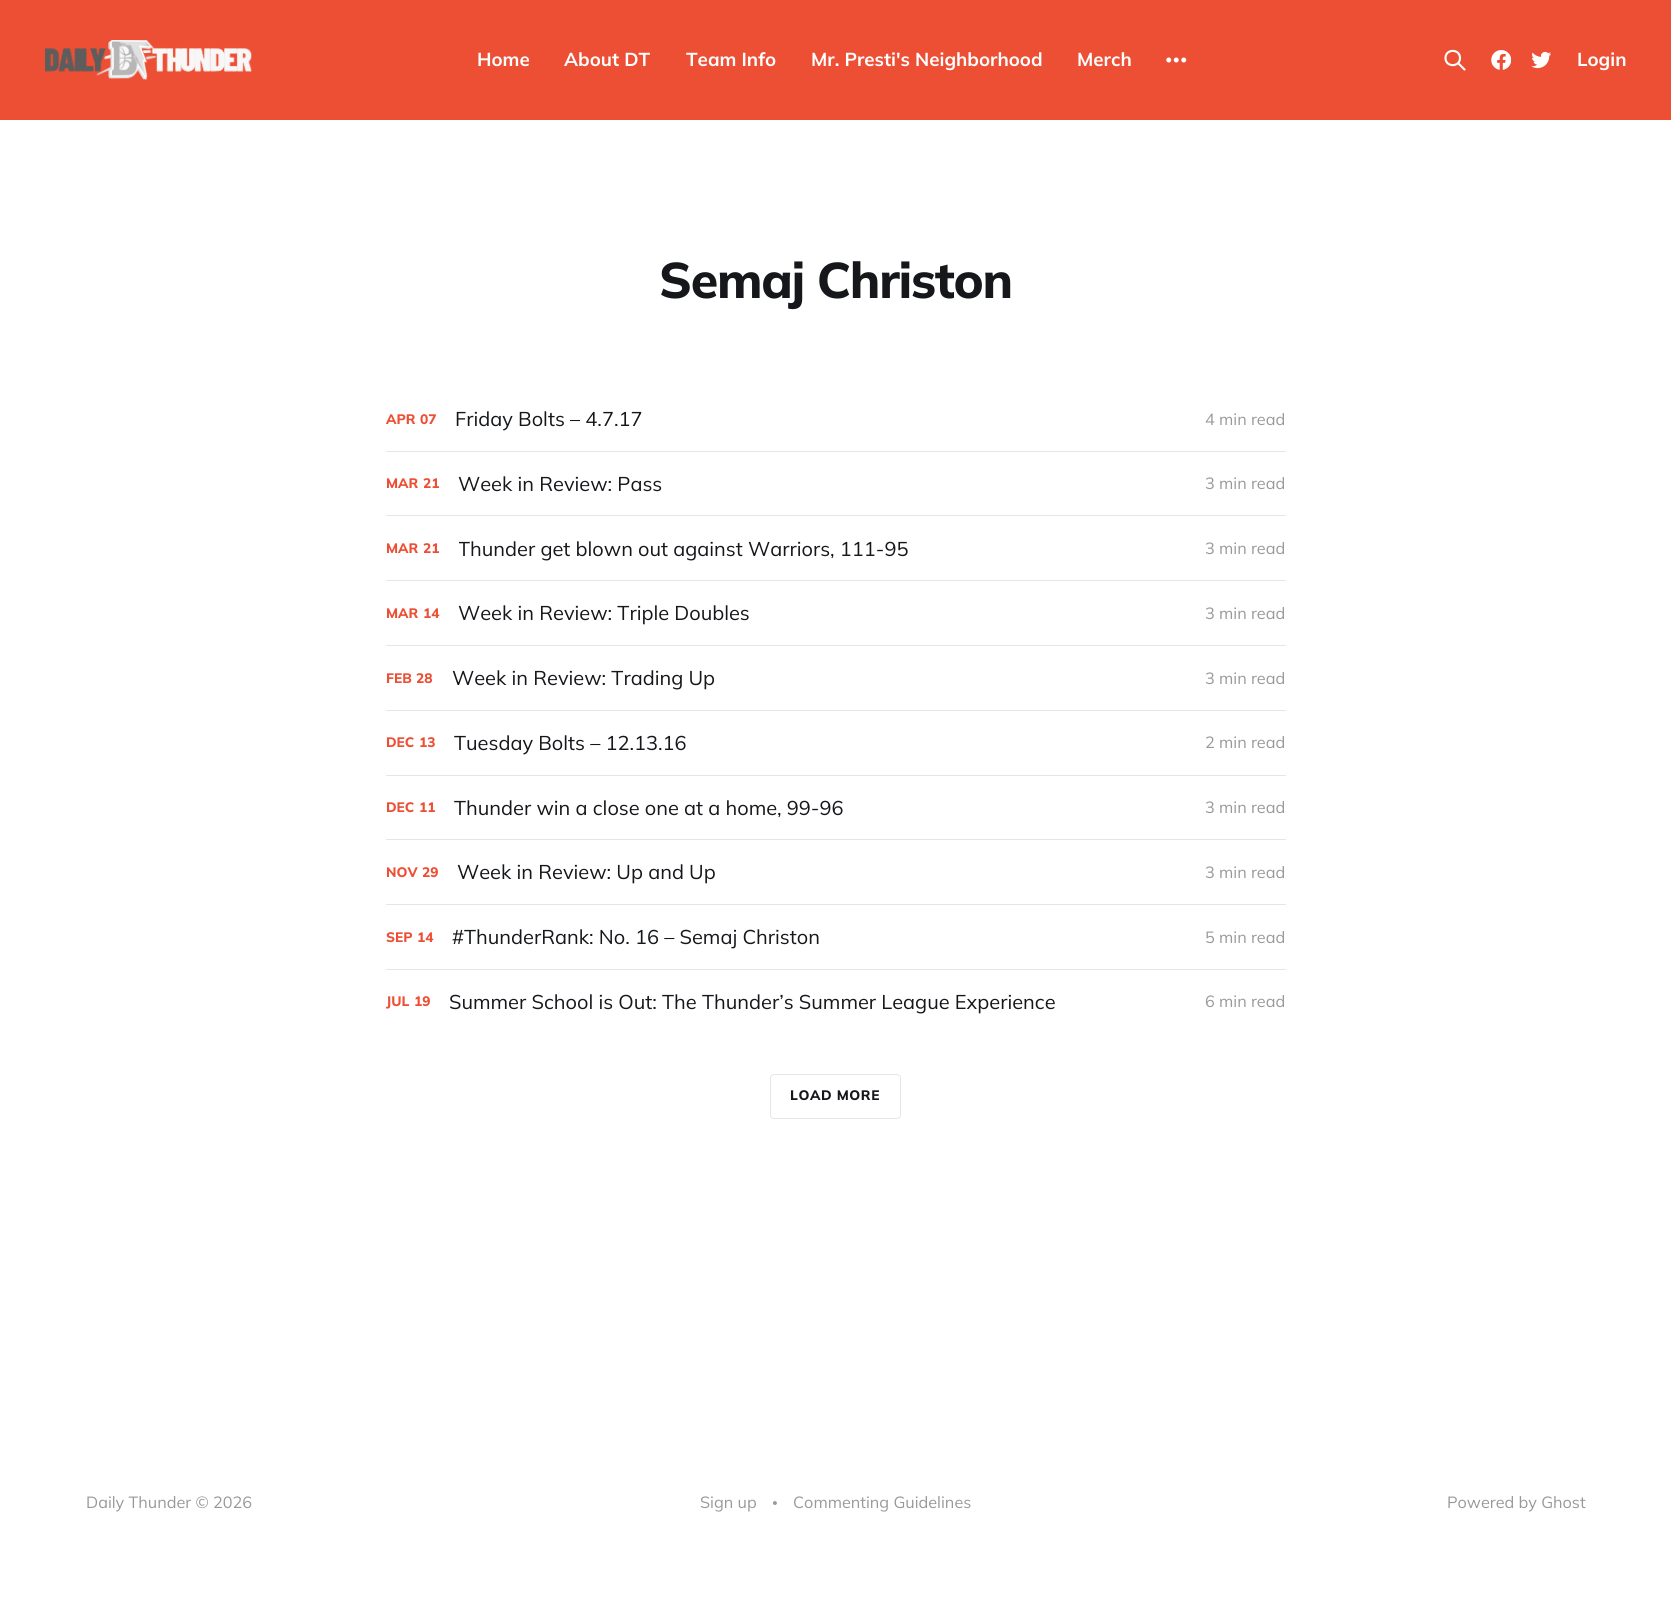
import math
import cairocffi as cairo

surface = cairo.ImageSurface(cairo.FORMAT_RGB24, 1671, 1614)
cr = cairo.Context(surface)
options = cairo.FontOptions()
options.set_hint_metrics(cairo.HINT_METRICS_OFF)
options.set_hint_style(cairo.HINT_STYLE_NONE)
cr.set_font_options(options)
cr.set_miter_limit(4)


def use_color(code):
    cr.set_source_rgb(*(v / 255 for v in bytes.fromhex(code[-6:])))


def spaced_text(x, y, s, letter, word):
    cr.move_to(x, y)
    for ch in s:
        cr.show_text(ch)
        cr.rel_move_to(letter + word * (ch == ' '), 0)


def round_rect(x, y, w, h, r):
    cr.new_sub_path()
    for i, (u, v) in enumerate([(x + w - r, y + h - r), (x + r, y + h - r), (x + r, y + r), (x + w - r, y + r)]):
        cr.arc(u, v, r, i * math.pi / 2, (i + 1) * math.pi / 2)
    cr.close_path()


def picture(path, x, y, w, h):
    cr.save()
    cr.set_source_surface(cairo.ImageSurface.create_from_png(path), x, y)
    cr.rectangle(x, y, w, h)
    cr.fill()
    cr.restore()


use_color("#ffffff")
cr.paint()
use_color("#ed4f35")
cr.rectangle(0, 0, 1671, 120)
cr.fill()
picture("img1.png", 45, 40, 207, 40)
cr.select_font_face("Mulish ExtraLight")
cr.set_font_size(18.75)
use_color("#ffffff")
cr.move_to(477, 66)
cr.show_text("Home")
cr.move_to(564, 66)
cr.show_text("About DT")
cr.move_to(686, 66)
cr.show_text("Team Info")
cr.move_to(811, 66)
cr.show_text("Mr. Presti's Neighborhood")
cr.move_to(1077, 66)
cr.show_text("Merch")
picture("img2.png", 1166, 57, 21, 6)
cr.new_path()
cr.move_to(1464.5, 69.5)
cr.line_to(1458, 63)
cr.move_to(1460, 58)
cr.curve_to(1460, 67.5, 1445.5, 67.5, 1445.5, 58)
cr.curve_to(1445.5, 48.5, 1460, 48.5, 1460, 58)
cr.close_path()
cr.set_line_width(2.1)
cr.set_line_cap(cairo.LINE_CAP_ROUND)
cr.set_line_join(cairo.LINE_JOIN_ROUND)
cr.stroke()
picture("img3.png", 1491, 50, 20, 20)
picture("img4.png", 1531, 51, 20, 18)
cr.move_to(1577, 66)
cr.show_text("Login")
cr.select_font_face("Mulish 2 ExtraLight")
cr.set_font_size(50)
use_color("#15171a")
spaced_text(659, 298, "Semaj Christon", -1.25, 0)
cr.set_font_size(13.75)
use_color("#ed4f35")
cr.move_to(386, 424)
cr.show_text("APR")
cr.move_to(420, 424)
cr.show_text("07")
cr.select_font_face("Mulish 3 ExtraLight")
cr.set_font_size(20)
use_color("#15171a")
cr.move_to(455, 426)
cr.show_text("Friday Bolts – 4.7.17")
cr.set_font_size(16.25)
use_color("#999999")
cr.move_to(1205, 425)
cr.show_text("4 min read")
use_color("#e6e6e6")
cr.rectangle(386, 451, 900, 1)
cr.fill()
cr.select_font_face("Mulish 2 ExtraLight")
cr.set_font_size(13.75)
use_color("#ed4f35")
cr.move_to(386, 488)
cr.show_text("MAR")
cr.move_to(423, 488)
cr.show_text("21")
cr.select_font_face("Mulish 3 ExtraLight")
cr.set_font_size(20)
use_color("#15171a")
cr.move_to(458, 491)
cr.show_text("Week in Review: Pass")
cr.set_font_size(16.25)
use_color("#999999")
cr.move_to(1205, 489)
cr.show_text("3 min read")
use_color("#e6e6e6")
cr.rectangle(386, 515, 900, 1)
cr.fill()
cr.select_font_face("Mulish 2 ExtraLight")
cr.set_font_size(13.75)
use_color("#ed4f35")
cr.move_to(386, 553)
cr.show_text("MAR")
cr.move_to(423, 553)
cr.show_text("21")
cr.save()
cr.rectangle(459, 535, 746, 26)
cr.clip()
cr.select_font_face("Mulish 3 ExtraLight")
cr.set_font_size(20)
use_color("#15171a")
cr.move_to(458, 556)
cr.show_text("Thunder get blown out against Warriors, 111-95")
cr.restore()
cr.select_font_face("Mulish 3 ExtraLight")
cr.set_font_size(16.25)
use_color("#999999")
cr.move_to(1205, 554)
cr.show_text("3 min read")
use_color("#e6e6e6")
cr.rectangle(386, 580, 900, 1)
cr.fill()
cr.select_font_face("Mulish 2 ExtraLight")
cr.set_font_size(13.75)
use_color("#ed4f35")
cr.move_to(386, 618)
cr.show_text("MAR")
cr.move_to(423, 618)
cr.show_text("14")
cr.select_font_face("Mulish 3 ExtraLight")
cr.set_font_size(20)
use_color("#15171a")
cr.move_to(458, 620)
cr.show_text("Week in Review: Triple Doubles")
cr.set_font_size(16.25)
use_color("#999999")
cr.move_to(1205, 619)
cr.show_text("3 min read")
use_color("#e6e6e6")
cr.rectangle(386, 645, 900, 1)
cr.fill()
cr.select_font_face("Mulish 2 ExtraLight")
cr.set_font_size(13.75)
use_color("#ed4f35")
cr.move_to(386, 683)
cr.show_text("FEB")
cr.move_to(416, 683)
cr.show_text("28")
cr.select_font_face("Mulish 3 ExtraLight")
cr.set_font_size(20)
use_color("#15171a")
cr.move_to(452, 685)
cr.show_text("Week in Review: Trading Up")
cr.set_font_size(16.25)
use_color("#999999")
cr.move_to(1205, 684)
cr.show_text("3 min read")
use_color("#e6e6e6")
cr.rectangle(386, 710, 900, 1)
cr.fill()
cr.select_font_face("Mulish 2 ExtraLight")
cr.set_font_size(13.75)
use_color("#ed4f35")
cr.move_to(386, 747)
cr.show_text("DEC")
cr.move_to(419, 747)
cr.show_text("13")
cr.select_font_face("Mulish 3 ExtraLight")
cr.set_font_size(20)
use_color("#15171a")
cr.move_to(454, 750)
cr.show_text("Tuesday Bolts – 12.13.16")
cr.set_font_size(16.25)
use_color("#999999")
cr.move_to(1205, 748)
cr.show_text("2 min read")
use_color("#e6e6e6")
cr.rectangle(386, 775, 900, 1)
cr.fill()
cr.select_font_face("Mulish 2 ExtraLight")
cr.set_font_size(13.75)
use_color("#ed4f35")
cr.move_to(386, 812)
cr.show_text("DEC")
cr.move_to(419, 812)
cr.show_text("11")
cr.select_font_face("Mulish 3 ExtraLight")
cr.set_font_size(20)
use_color("#15171a")
cr.move_to(454, 815)
cr.show_text("Thunder win a close one at a home, 99-96")
cr.set_font_size(16.25)
use_color("#999999")
cr.move_to(1205, 813)
cr.show_text("3 min read")
use_color("#e6e6e6")
cr.rectangle(386, 839, 900, 1)
cr.fill()
cr.select_font_face("Mulish 2 ExtraLight")
cr.set_font_size(13.75)
use_color("#ed4f35")
cr.move_to(386, 877)
cr.show_text("NOV")
cr.move_to(422, 877)
cr.show_text("29")
cr.select_font_face("Mulish 3 ExtraLight")
cr.set_font_size(20)
use_color("#15171a")
cr.move_to(457, 879)
cr.show_text("Week in Review: Up and Up")
cr.set_font_size(16.25)
use_color("#999999")
cr.move_to(1205, 878)
cr.show_text("3 min read")
use_color("#e6e6e6")
cr.rectangle(386, 904, 900, 1)
cr.fill()
cr.select_font_face("Mulish 2 ExtraLight")
cr.set_font_size(13.75)
use_color("#ed4f35")
cr.move_to(386, 942)
cr.show_text("SEP")
cr.move_to(417, 942)
cr.show_text("14")
cr.select_font_face("Mulish 3 ExtraLight")
cr.set_font_size(20)
use_color("#15171a")
cr.move_to(452, 944)
cr.show_text("#ThunderRank: No. 16 – Semaj Christon")
cr.set_font_size(16.25)
use_color("#999999")
cr.move_to(1205, 943)
cr.show_text("5 min read")
use_color("#e6e6e6")
cr.rectangle(386, 969, 900, 1)
cr.fill()
cr.save()
cr.rectangle(386, 970, 900, 64)
cr.clip()
cr.select_font_face("Mulish 2 ExtraLight")
cr.set_font_size(13.75)
use_color("#ed4f35")
cr.move_to(386, 1006)
cr.show_text("JUL")
cr.restore()
cr.select_font_face("Mulish 2 ExtraLight")
cr.set_font_size(13.75)
use_color("#ed4f35")
cr.move_to(414, 1006)
cr.show_text("19")
cr.select_font_face("Mulish 3 ExtraLight")
cr.set_font_size(20)
use_color("#15171a")
cr.move_to(449, 1009)
cr.show_text("Summer School is Out: The Thunder’s Summer League Experience")
cr.set_font_size(16.25)
use_color("#999999")
cr.move_to(1205, 1007)
cr.show_text("6 min read")
round_rect(770.5, 1074.5, 130, 44, 3.5)
use_color("#e6e6e6")
cr.set_line_width(1)
cr.set_line_cap(cairo.LINE_CAP_BUTT)
cr.set_line_join(cairo.LINE_JOIN_MITER)
cr.stroke()
cr.select_font_face("Mulish 2 ExtraLight")
cr.set_font_size(13.75)
use_color("#15171a")
spaced_text(790, 1100, "LOAD MORE", 0.6, 0)
cr.select_font_face("Mulish 3 ExtraLight")
cr.set_font_size(16.25)
use_color("#999999")
cr.move_to(86, 1508)
cr.show_text("Daily Thunder © 2026")
cr.move_to(700, 1508)
cr.show_text("Sign up")
cr.set_font_size(11)
cr.move_to(772, 1506)
cr.show_text("•")
cr.set_font_size(16.25)
cr.move_to(793, 1508)
cr.show_text("Commenting Guidelines")
cr.move_to(1447, 1508)
cr.show_text("Powered by Ghost")
surface.write_to_png("result.png")
